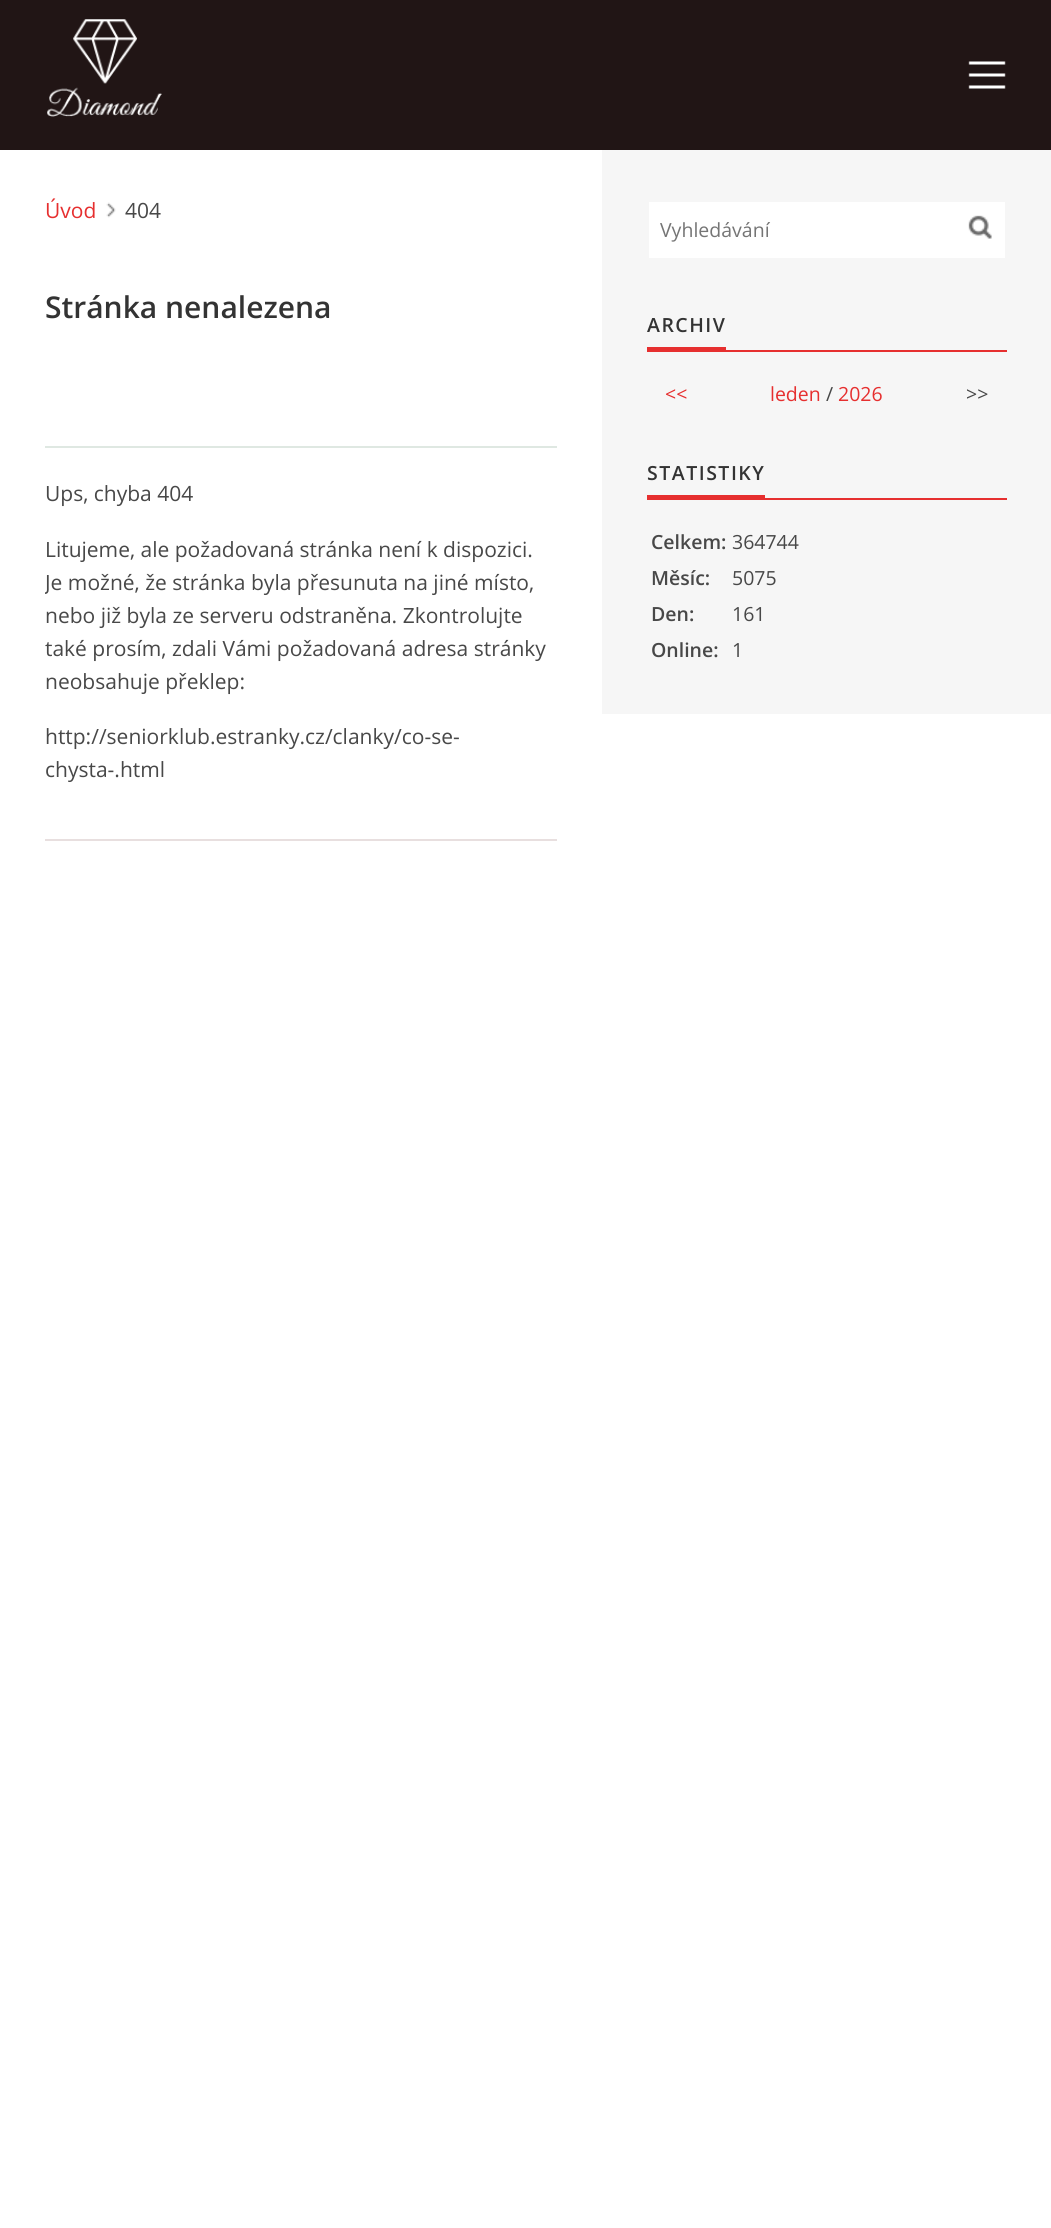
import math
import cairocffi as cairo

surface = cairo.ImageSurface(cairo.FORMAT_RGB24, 1051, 2228)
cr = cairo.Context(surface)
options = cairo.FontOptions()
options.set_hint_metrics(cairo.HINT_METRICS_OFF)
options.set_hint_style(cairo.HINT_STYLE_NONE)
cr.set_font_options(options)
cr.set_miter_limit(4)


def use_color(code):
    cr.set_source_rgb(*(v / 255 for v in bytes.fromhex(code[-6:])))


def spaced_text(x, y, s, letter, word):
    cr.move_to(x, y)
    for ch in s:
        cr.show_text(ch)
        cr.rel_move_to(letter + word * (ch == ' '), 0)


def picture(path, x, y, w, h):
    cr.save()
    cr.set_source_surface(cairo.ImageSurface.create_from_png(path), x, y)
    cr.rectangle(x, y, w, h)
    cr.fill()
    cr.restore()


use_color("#ffffff")
cr.paint()
use_color("#211515")
cr.rectangle(0, 0, 1051, 150)
cr.fill()
picture("img1.png", 47, 19, 115, 98)
picture("img2.png", 968, 61, 38, 28)
picture("img3.png", 106, 202, 10, 16)
cr.select_font_face("Open Sans")
cr.set_font_size(21)
use_color("#e62f2f")
cr.move_to(45, 218)
cr.show_text("Úvod")
use_color("#484848")
cr.move_to(125, 218)
cr.show_text("404")
use_color("#e8dfdf")
cr.rectangle(45, 839, 512, 2)
cr.fill()
cr.select_font_face("Open Sans SemiBold")
cr.set_font_size(30)
use_color("#333333")
cr.move_to(45, 318)
cr.show_text("Stránka nenalezena")
use_color("#dfe8e2")
cr.rectangle(45, 446, 512, 2)
cr.fill()
cr.select_font_face("Open Sans")
cr.set_font_size(21)
use_color("#484848")
cr.move_to(45, 501)
cr.show_text("Ups, chyba 404")
cr.move_to(45, 557)
cr.show_text("Litujeme, ale požadovaná stránka není k dispozici.")
cr.save()
cr.rectangle(45, 293, 512, 546)
cr.clip()
cr.move_to(45, 590)
cr.show_text("Je možné, že stránka byla přesunuta na jiné místo,")
cr.restore()
cr.move_to(45, 623)
cr.show_text("nebo již byla ze serveru odstraněna. Zkontrolujte")
cr.move_to(45, 656)
cr.show_text("také prosím, zdali Vámi požadovaná adresa stránky")
cr.move_to(45, 689)
cr.show_text("neobsahuje překlep:")
cr.move_to(45, 744)
cr.show_text("http://seniorklub.estranky.cz/clanky/co-se-")
cr.move_to(45, 777)
cr.show_text("chysta-.html")
use_color("#f6f6f6")
cr.rectangle(602, 150, 449, 564)
cr.fill()
use_color("#ffffff")
cr.rectangle(649, 202, 356, 56)
cr.fill()
cr.set_font_size(19.5)
use_color("#757575")
cr.move_to(660, 237)
cr.show_text("Vyhledávání")
picture("img4.png", 968, 215, 24, 24)
cr.select_font_face("Open Sans SemiBold")
use_color("#333333")
spaced_text(647, 332, "ARCHIV", 1.5, 0)
use_color("#e62f2f")
cr.rectangle(647, 347, 79, 3)
cr.fill()
cr.rectangle(647, 350, 360, 2)
cr.fill()
cr.select_font_face("Open Sans")
cr.move_to(665, 401)
cr.show_text("<<")
cr.move_to(770, 401)
cr.show_text("leden")
use_color("#484848")
cr.move_to(826, 401)
cr.show_text("/")
use_color("#e62f2f")
cr.move_to(838, 401)
cr.show_text("2026")
use_color("#484848")
cr.move_to(966, 401)
cr.show_text(">>")
cr.select_font_face("Open Sans SemiBold")
use_color("#333333")
spaced_text(647, 480, "STATISTIKY", 1.5, 0)
use_color("#e62f2f")
cr.rectangle(647, 495, 118, 3)
cr.fill()
cr.rectangle(647, 498, 360, 2)
cr.fill()
use_color("#484848")
cr.move_to(651, 549)
cr.show_text("Celkem:")
cr.select_font_face("Open Sans")
cr.move_to(732, 549)
cr.show_text("364744")
cr.select_font_face("Open Sans SemiBold")
cr.move_to(651, 585)
cr.show_text("Měsíc:")
cr.select_font_face("Open Sans")
cr.move_to(732, 585)
cr.show_text("5075")
cr.select_font_face("Open Sans SemiBold")
cr.move_to(651, 621)
cr.show_text("Den:")
cr.select_font_face("Open Sans")
cr.move_to(732, 621)
cr.show_text("161")
cr.select_font_face("Open Sans SemiBold")
cr.move_to(651, 657)
cr.show_text("Online:")
cr.select_font_face("Open Sans")
cr.move_to(732, 657)
cr.show_text("1")
surface.write_to_png("result.png")
